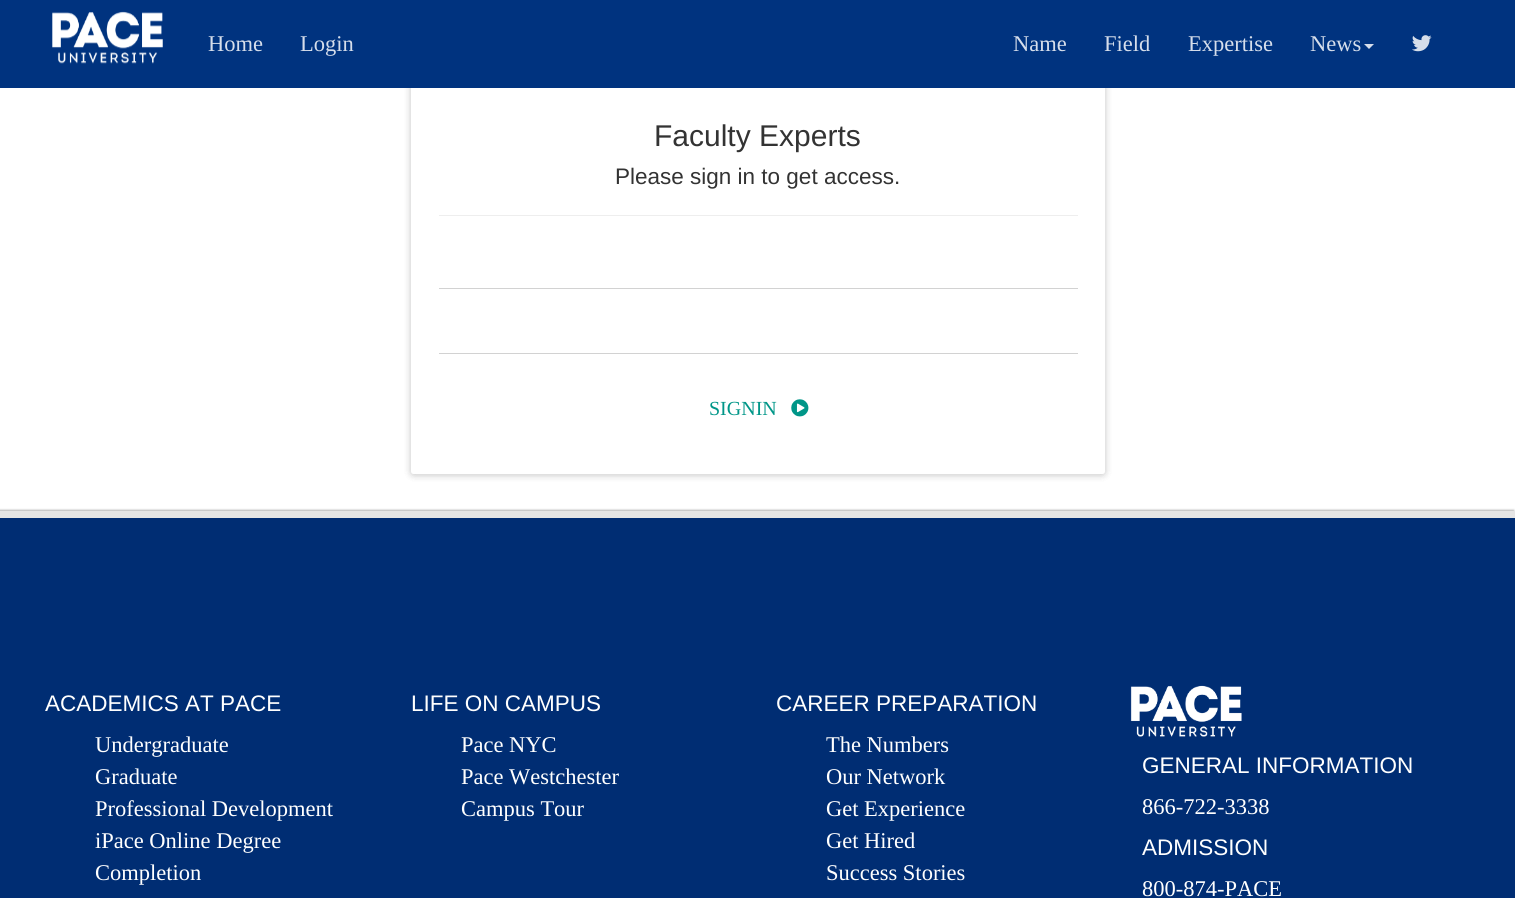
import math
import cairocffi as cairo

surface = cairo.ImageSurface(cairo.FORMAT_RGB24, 1515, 898)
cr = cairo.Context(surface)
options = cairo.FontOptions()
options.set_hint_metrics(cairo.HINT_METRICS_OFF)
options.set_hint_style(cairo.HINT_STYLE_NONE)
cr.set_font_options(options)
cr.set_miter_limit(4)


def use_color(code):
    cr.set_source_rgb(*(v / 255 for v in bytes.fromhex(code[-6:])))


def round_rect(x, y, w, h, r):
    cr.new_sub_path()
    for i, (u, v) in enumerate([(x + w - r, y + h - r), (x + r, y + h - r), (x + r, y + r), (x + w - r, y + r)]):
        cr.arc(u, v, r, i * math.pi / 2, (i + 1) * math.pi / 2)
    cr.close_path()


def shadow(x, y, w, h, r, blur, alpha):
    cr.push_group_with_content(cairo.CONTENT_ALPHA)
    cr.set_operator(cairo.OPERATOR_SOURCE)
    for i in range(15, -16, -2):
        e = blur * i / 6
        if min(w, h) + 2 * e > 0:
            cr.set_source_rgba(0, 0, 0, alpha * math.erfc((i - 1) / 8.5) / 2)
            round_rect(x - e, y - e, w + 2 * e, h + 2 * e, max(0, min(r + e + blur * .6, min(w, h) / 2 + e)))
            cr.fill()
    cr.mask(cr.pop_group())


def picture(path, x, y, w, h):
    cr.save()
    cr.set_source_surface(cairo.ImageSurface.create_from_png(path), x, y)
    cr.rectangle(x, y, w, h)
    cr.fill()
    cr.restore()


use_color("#ffffff")
cr.paint()
use_color("#000000")
shadow(411, 76, 694, 399, 2.5, 4, 0.12)
shadow(411, 76, 694, 399, 2.5, 4, 0.12)
use_color("#ffffff")
round_rect(411, 75, 694, 399, 2.5)
cr.fill()
use_color("#00337f")
cr.rectangle(0, 0, 1515, 88)
cr.fill()
picture("img1.png", 52, 11, 111, 53)
cr.select_font_face("Liberation Serif")
cr.set_font_size(22.5)
use_color("#d6deeb")
cr.move_to(208, 51)
cr.show_text("Home")
cr.move_to(300, 51)
cr.show_text("Login")
cr.move_to(1013, 51)
cr.show_text("Name")
cr.move_to(1104, 51)
cr.show_text("Field")
cr.move_to(1188, 51)
cr.show_text("Expertise")
cr.move_to(1310, 51)
cr.show_text("News")
cr.new_path()
cr.move_to(1364, 44)
cr.line_to(1374, 44)
cr.line_to(1369, 49)
cr.close_path()
cr.fill()
picture("img2.png", 1412, 35, 20, 17)
cr.select_font_face("Liberation Sans")
cr.set_font_size(30)
use_color("#333333")
cr.move_to(654, 146)
cr.show_text("Faculty Experts")
cr.set_font_size(22.5)
cr.move_to(615, 184)
cr.show_text("Please sign in to get access.")
use_color("#eeeeee")
cr.rectangle(439, 215, 639, 1)
cr.fill()
use_color("#d2d2d2")
cr.rectangle(439, 288, 639, 1)
cr.fill()
cr.rectangle(439, 353, 639, 1)
cr.fill()
cr.select_font_face("Liberation Serif")
cr.set_font_size(20)
use_color("#009688")
cr.move_to(709, 415)
cr.show_text("SIGNIN")
picture("img3.png", 791, 399, 18, 18)
use_color("#000000")
shadow(-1, 510, 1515, 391, 0, 1, 0.3)
use_color("#002d73")
cr.rectangle(0, 518, 1515, 380)
cr.fill()
use_color("#e5e5e5")
cr.rectangle(0, 511, 1515, 7)
cr.fill()
cr.select_font_face("Liberation Sans")
cr.set_font_size(22.5)
use_color("#ffffff")
cr.move_to(45, 711)
cr.show_text("ACADEMICS AT PACE")
cr.select_font_face("Liberation Serif")
cr.move_to(95, 752)
cr.show_text("Undergraduate")
cr.move_to(95, 784)
cr.show_text("Graduate")
cr.move_to(95, 816)
cr.show_text("Professional Development")
cr.move_to(95, 848)
cr.show_text("iPace Online Degree")
cr.move_to(95, 880)
cr.show_text("Completion")
cr.select_font_face("Liberation Sans")
cr.move_to(411, 711)
cr.show_text("LIFE ON CAMPUS")
cr.select_font_face("Liberation Serif")
cr.move_to(461, 752)
cr.show_text("Pace NYC")
cr.move_to(461, 784)
cr.show_text("Pace Westchester")
cr.move_to(461, 816)
cr.show_text("Campus Tour")
cr.select_font_face("Liberation Sans")
cr.move_to(776, 711)
cr.show_text("CAREER PREPARATION")
cr.select_font_face("Liberation Serif")
cr.move_to(826, 752)
cr.show_text("The Numbers")
cr.move_to(826, 784)
cr.show_text("Our Network")
cr.move_to(826, 816)
cr.show_text("Get Experience")
cr.move_to(826, 848)
cr.show_text("Get Hired")
cr.move_to(826, 880)
cr.show_text("Success Stories")
picture("img4.png", 1130, 685, 112, 52)
cr.select_font_face("Liberation Sans")
cr.move_to(1142, 773)
cr.show_text("GENERAL INFORMATION")
cr.select_font_face("Liberation Serif")
cr.move_to(1142, 814)
cr.show_text("866-722-3338")
cr.select_font_face("Liberation Sans")
cr.move_to(1142, 855)
cr.show_text("ADMISSION")
cr.select_font_face("Liberation Serif")
cr.move_to(1142, 896)
cr.show_text("800-874-PACE")
surface.write_to_png("result.png")
